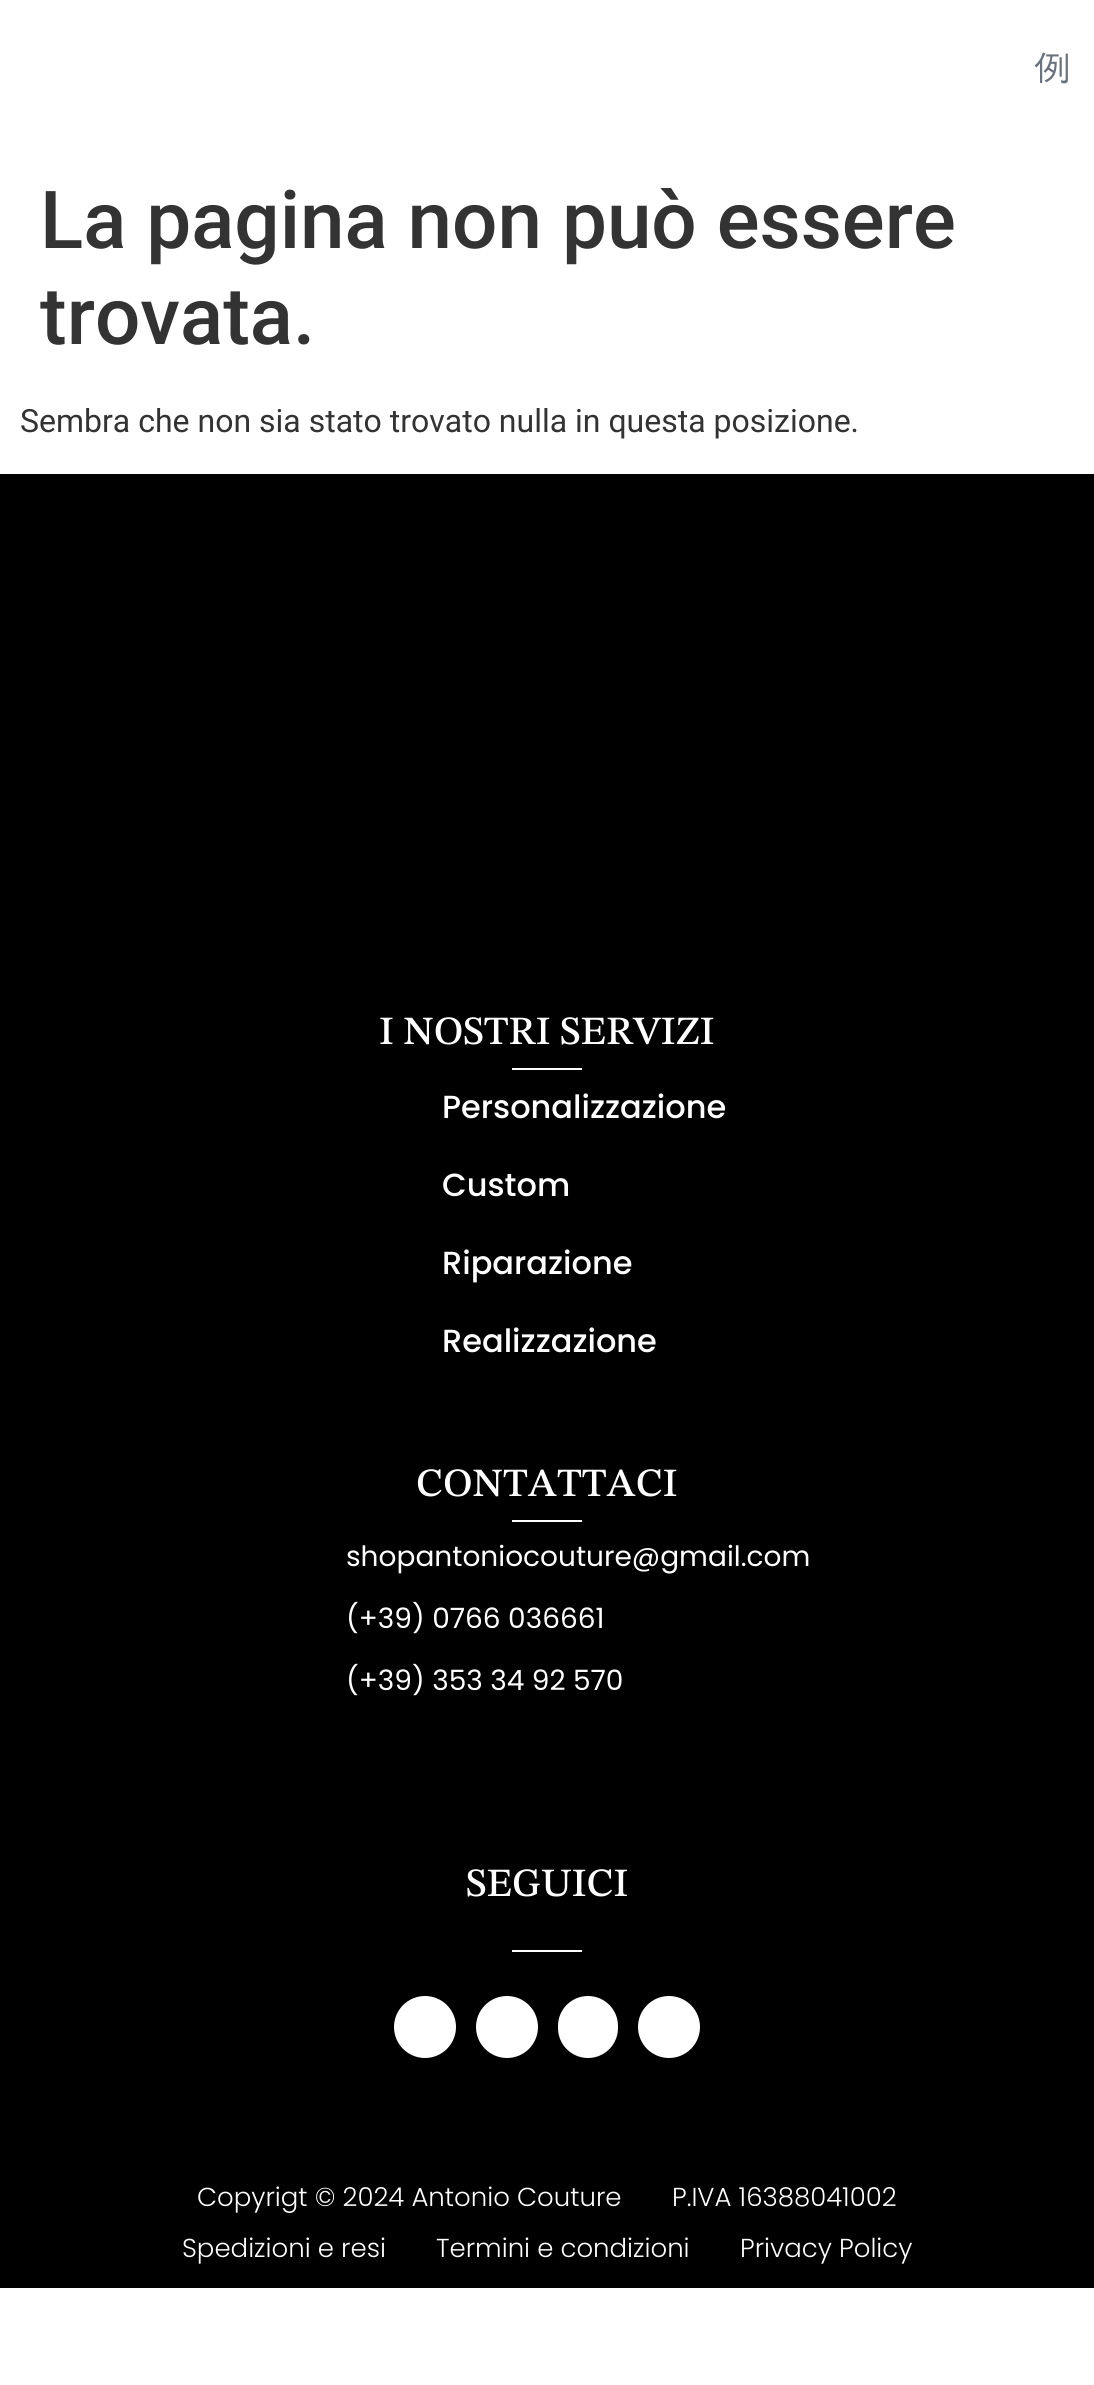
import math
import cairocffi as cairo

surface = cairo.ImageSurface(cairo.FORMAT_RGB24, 1094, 2385)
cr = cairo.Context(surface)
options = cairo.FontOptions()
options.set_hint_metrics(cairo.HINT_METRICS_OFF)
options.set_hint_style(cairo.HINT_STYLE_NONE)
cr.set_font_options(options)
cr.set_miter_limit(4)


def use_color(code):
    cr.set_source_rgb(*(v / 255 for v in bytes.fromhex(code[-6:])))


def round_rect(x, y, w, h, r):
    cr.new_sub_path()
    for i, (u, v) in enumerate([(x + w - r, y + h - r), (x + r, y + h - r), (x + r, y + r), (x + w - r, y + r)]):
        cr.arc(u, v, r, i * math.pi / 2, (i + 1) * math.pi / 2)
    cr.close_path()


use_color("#ffffff")
cr.paint()
cr.select_font_face("WenQuanYi Zen Hei Medium")
cr.set_font_size(36)
use_color("#69727d")
cr.move_to(1034, 79)
cr.show_text("例")
cr.select_font_face("Roboto Medium")
cr.set_font_size(80)
use_color("#333333")
cr.move_to(40, 248)
cr.show_text("La pagina non può essere")
cr.move_to(40, 344)
cr.show_text("trovata.")
cr.select_font_face("Roboto")
cr.set_font_size(32)
cr.move_to(20, 432)
cr.show_text("Sembra che non sia stato trovato nulla in questa posizione.")
use_color("#000000")
cr.rectangle(0, 474, 1094, 1814)
cr.fill()
cr.select_font_face("STIX Two Text Medium")
cr.set_font_size(40)
use_color("#ffffff")
cr.move_to(379, 1044)
cr.show_text("I NOSTRI SERVIZI")
cr.rectangle(512, 1068, 70, 2)
cr.fill()
cr.select_font_face("Poppins Medium")
cr.set_font_size(32)
cr.move_to(442, 1118)
cr.show_text("Personalizzazione")
cr.move_to(442, 1196)
cr.show_text("Custom")
cr.move_to(442, 1274)
cr.show_text("Riparazione")
cr.move_to(442, 1352)
cr.show_text("Realizzazione")
cr.select_font_face("STIX Two Text Medium")
cr.set_font_size(40)
cr.move_to(416, 1496)
cr.show_text("CONTATTACI")
cr.rectangle(512, 1520, 70, 2)
cr.fill()
cr.select_font_face("Poppins")
cr.set_font_size(28)
cr.move_to(346, 1566)
cr.show_text("shopantoniocouture@gmail.com")
cr.move_to(346, 1628)
cr.show_text("(+39) 0766 036661")
cr.move_to(346, 1690)
cr.show_text("(+39) 353 34 92 570")
cr.select_font_face("STIX Two Text Medium")
cr.set_font_size(40)
cr.move_to(466, 1896)
cr.show_text("SEGUICI")
cr.rectangle(512, 1950, 70, 2)
cr.fill()
cr.arc(425, 2027, 31, 0, 2 * math.pi)
cr.fill()
cr.arc(507, 2027, 31, 0, 2 * math.pi)
cr.fill()
round_rect(558, 1996, 60, 62, 30)
cr.fill()
cr.arc(669, 2027, 31, 0, 2 * math.pi)
cr.fill()
cr.select_font_face("Poppins Light")
cr.set_font_size(26)
cr.move_to(197, 2206)
cr.show_text("Copyrigt © 2024 Antonio Couture")
cr.move_to(672, 2206)
cr.show_text("P.IVA 16388041002")
cr.move_to(182, 2257)
cr.show_text("Spedizioni e resi")
cr.move_to(436, 2257)
cr.show_text("Termini e condizioni")
cr.move_to(740, 2257)
cr.show_text("Privacy Policy")
surface.write_to_png("result.png")
